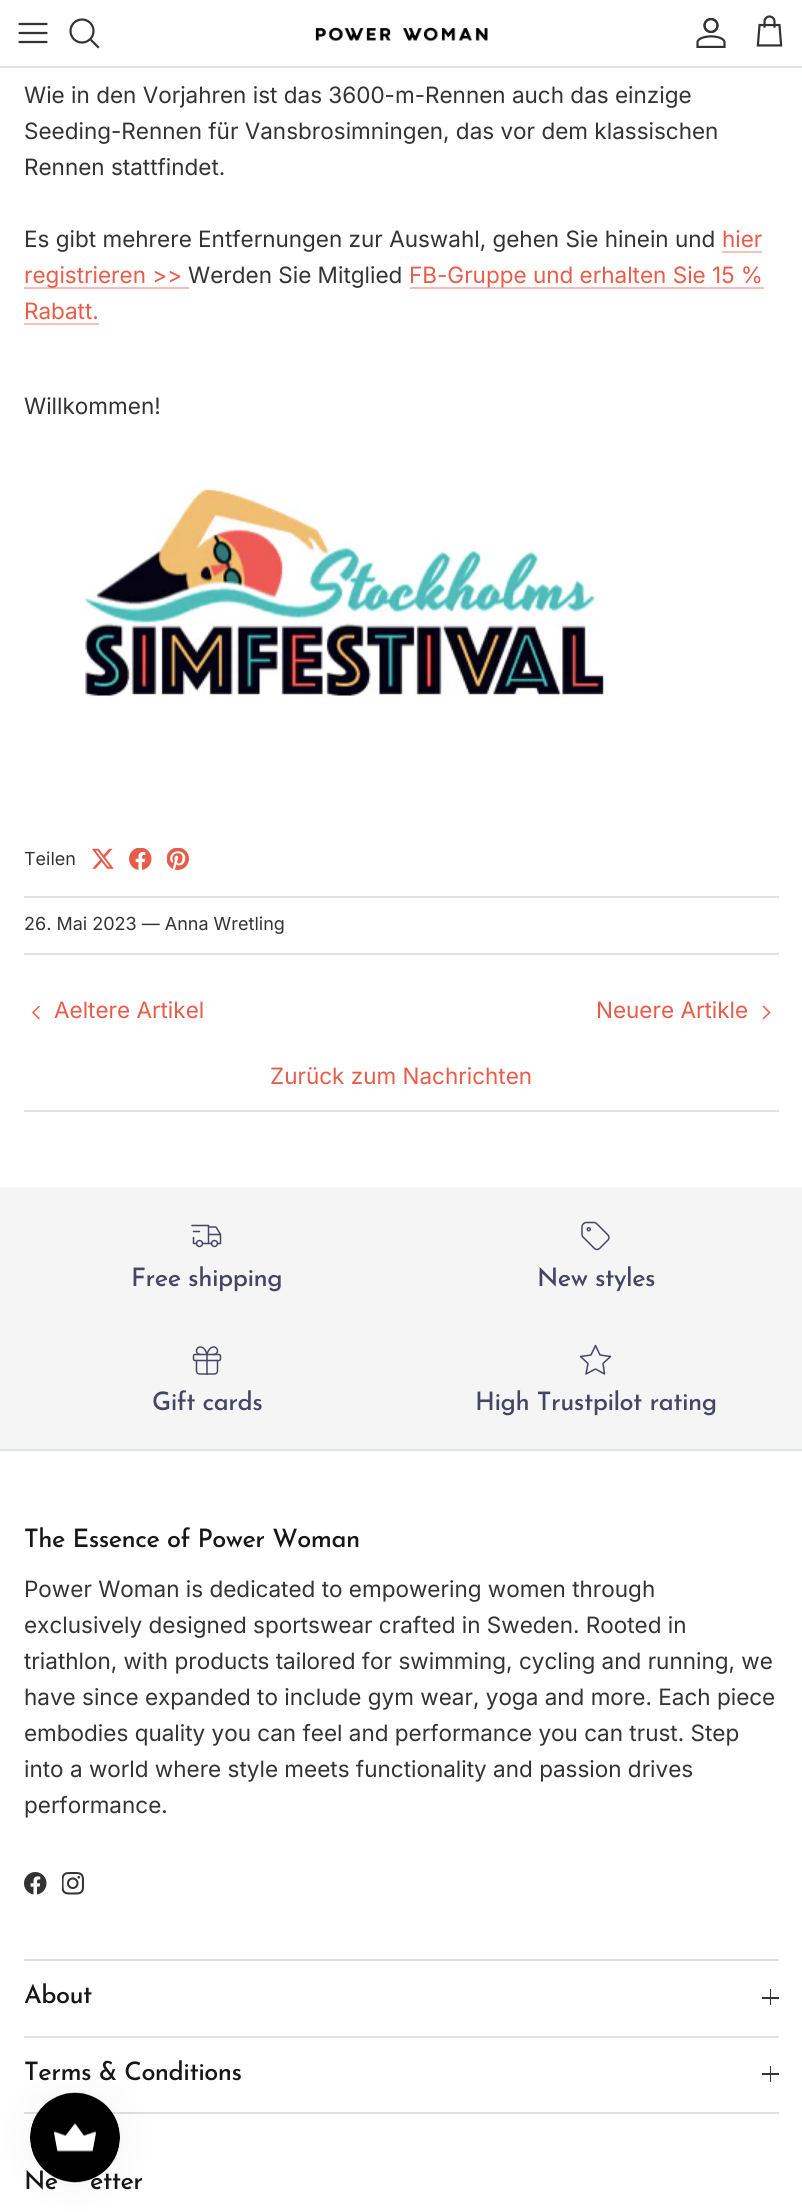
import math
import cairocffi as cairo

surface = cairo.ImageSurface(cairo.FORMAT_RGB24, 802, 2212)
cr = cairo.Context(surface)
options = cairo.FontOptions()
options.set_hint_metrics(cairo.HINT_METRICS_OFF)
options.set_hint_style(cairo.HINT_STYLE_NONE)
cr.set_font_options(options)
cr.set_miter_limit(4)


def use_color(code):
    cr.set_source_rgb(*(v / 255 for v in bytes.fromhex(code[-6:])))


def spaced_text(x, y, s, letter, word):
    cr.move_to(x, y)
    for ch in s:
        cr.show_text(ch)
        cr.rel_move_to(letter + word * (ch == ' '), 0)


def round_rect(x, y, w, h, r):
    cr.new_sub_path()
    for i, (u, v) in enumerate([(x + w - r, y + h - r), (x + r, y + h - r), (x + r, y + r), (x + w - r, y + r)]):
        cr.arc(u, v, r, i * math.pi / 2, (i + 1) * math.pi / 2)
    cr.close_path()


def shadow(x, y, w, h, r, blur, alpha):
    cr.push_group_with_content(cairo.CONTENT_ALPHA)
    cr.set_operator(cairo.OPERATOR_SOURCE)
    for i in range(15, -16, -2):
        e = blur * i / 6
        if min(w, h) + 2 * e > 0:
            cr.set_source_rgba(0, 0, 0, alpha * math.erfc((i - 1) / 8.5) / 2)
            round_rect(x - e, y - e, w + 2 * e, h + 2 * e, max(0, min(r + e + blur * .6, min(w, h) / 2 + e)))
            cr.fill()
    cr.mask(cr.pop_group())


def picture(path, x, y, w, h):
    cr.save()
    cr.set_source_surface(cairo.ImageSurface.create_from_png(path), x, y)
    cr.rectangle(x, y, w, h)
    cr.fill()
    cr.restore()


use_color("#ffffff")
cr.paint()
use_color("#dfe3e8")
cr.rectangle(0, 66, 802, 2)
cr.fill()
cr.new_path()
cr.move_to(19.5, 33)
cr.line_to(46.5, 33)
cr.move_to(19.5, 24)
cr.line_to(46.5, 24)
cr.move_to(19.5, 42)
cr.line_to(46.5, 42)
use_color("#333333")
cr.set_line_width(2.2)
cr.set_line_cap(cairo.LINE_CAP_ROUND)
cr.set_line_join(cairo.LINE_JOIN_ROUND)
cr.stroke()
cr.arc(82, 31, 11.5, 0, 2 * math.pi)
cr.set_line_cap(cairo.LINE_CAP_BUTT)
cr.set_line_join(cairo.LINE_JOIN_MITER)
cr.stroke()
cr.new_path()
cr.move_to(91.5, 40.5)
cr.line_to(98, 47)
cr.set_line_cap(cairo.LINE_CAP_SQUARE)
cr.stroke()
picture("img1.png", 315, 27, 173, 15)
picture("img2.png", 696, 17, 30, 31)
picture("img3.png", 756, 15, 27, 32)
cr.select_font_face("Inter")
cr.set_font_size(22.5)
cr.move_to(24, 103)
cr.show_text("Wie in den Vorjahren ist das 3600-m-Rennen auch das einzige")
cr.move_to(24, 139)
cr.show_text("Seeding-Rennen für Vansbrosimningen, das vor dem klassischen")
cr.move_to(24, 175)
cr.show_text("Rennen stattfindet.")
cr.move_to(24, 247)
cr.show_text("Es gibt mehrere Entfernungen zur Auswahl, gehen Sie hinein und")
use_color("#e85c4a")
cr.move_to(722, 247)
cr.show_text("hier")
use_color("#f6beb7")
cr.rectangle(722, 251, 40, 2)
cr.fill()
cr.rectangle(24, 287, 165, 2)
cr.fill()
use_color("#e85c4a")
cr.move_to(24, 283)
cr.show_text("registrieren >>")
use_color("#333333")
cr.move_to(188, 283)
cr.show_text("Werden Sie Mitglied")
use_color("#f6beb7")
cr.rectangle(410, 287, 354, 2)
cr.fill()
use_color("#e85c4a")
cr.move_to(409, 283)
cr.show_text("FB-Gruppe und erhalten Sie 15 %")
cr.move_to(24, 319)
cr.show_text("Rabatt.")
use_color("#f6beb7")
cr.rectangle(24, 323, 75, 2)
cr.fill()
use_color("#333333")
cr.move_to(24, 414)
cr.show_text("Willkommen!")
picture("img4.png", 84, 483, 522, 216)
cr.set_font_size(18)
cr.move_to(24, 865)
cr.show_text("Teilen")
picture("img5.png", 92, 848, 22, 21)
picture("img6.png", 129, 848, 23, 22)
picture("img7.png", 167, 848, 22, 22)
use_color("#e2e2e2")
cr.rectangle(24, 896, 755, 2)
cr.fill()
cr.rectangle(24, 953, 755, 2)
cr.fill()
use_color("#333333")
cr.move_to(24, 930)
cr.show_text("26. Mai 2023 — Anna Wretling")
use_color("#e2e2e2")
cr.rectangle(24, 1110, 755, 2)
cr.fill()
cr.set_font_size(22.5)
use_color("#e85c4a")
cr.move_to(54, 1018)
cr.show_text("Aeltere Artikel")
cr.new_path()
cr.move_to(39, 1018.5)
cr.line_to(33, 1012.5)
cr.line_to(39, 1006.5)
cr.set_line_width(1.5)
cr.set_line_cap(cairo.LINE_CAP_ROUND)
cr.set_line_join(cairo.LINE_JOIN_ROUND)
cr.stroke()
cr.move_to(596, 1018)
cr.show_text("Neuere Artikle")
cr.new_path()
cr.move_to(763.5, 1018.5)
cr.line_to(769.5, 1012.5)
cr.line_to(763.5, 1006.5)
cr.stroke()
cr.move_to(270, 1084)
cr.show_text("Zurück zum Nachrichten")
use_color("#f5f5f5")
cr.rectangle(0, 1187, 802, 262)
cr.fill()
picture("img8.png", 191, 1224, 31, 24)
cr.select_font_face("Josefin Sans Medium")
cr.set_font_size(25.4)
use_color("#454564")
spaced_text(131, 1286, "Free shipping", -0.5, 0)
picture("img9.png", 581, 1221, 29, 30)
spaced_text(537, 1286, "New styles", -0.5, 0)
picture("img10.png", 192, 1346, 30, 29)
spaced_text(152, 1410, "Gift cards", -0.5, 0)
cr.new_path()
cr.move_to(595.5, 1369)
cr.line_to(586, 1374)
cr.line_to(588, 1363.5)
cr.line_to(580.5, 1356.5)
cr.line_to(591, 1355)
cr.line_to(595.5, 1345.5)
cr.line_to(600, 1355)
cr.line_to(610.5, 1356.5)
cr.line_to(603, 1363.5)
cr.line_to(604.5, 1374)
cr.close_path()
cr.stroke()
spaced_text(475, 1410, "High Trustpilot rating", -0.5, 0)
use_color("#dfe3e8")
cr.rectangle(0, 1449, 802, 2)
cr.fill()
use_color("#171717")
spaced_text(24, 1547, "The Essence of Power Woman", -0.5, 0)
cr.select_font_face("Inter")
cr.set_font_size(22.5)
use_color("#333333")
cr.move_to(24, 1597)
cr.show_text("Power Woman is dedicated to empowering women through")
cr.move_to(24, 1633)
cr.show_text("exclusively designed sportswear crafted in Sweden. Rooted in")
cr.move_to(24, 1669)
cr.show_text("triathlon, with products tailored for swimming, cycling and running, we")
cr.move_to(24, 1705)
cr.show_text("have since expanded to include gym wear, yoga and more. Each piece")
cr.move_to(24, 1741)
cr.show_text("embodies quality you can feel and performance you can trust. Step")
cr.move_to(24, 1777)
cr.show_text("into a world where style meets functionality and passion drives")
cr.move_to(24, 1813)
cr.show_text("performance.")
picture("img11.png", 24, 1872, 23, 23)
picture("img12.png", 62, 1872, 22, 23)
use_color("#e0e0e0")
cr.rectangle(24, 1959, 755, 2)
cr.fill()
cr.select_font_face("Josefin Sans Medium")
cr.set_font_size(25.4)
use_color("#171717")
spaced_text(24, 2003, "About", -0.5, 0)
use_color("#333333")
cr.rectangle(770, 1989, 1, 16)
cr.fill()
cr.rectangle(762, 1997, 17, 2)
cr.fill()
use_color("#e0e0e0")
cr.rectangle(24, 2036, 755, 2)
cr.fill()
cr.rectangle(24, 2112, 755, 2)
cr.fill()
use_color("#171717")
spaced_text(24, 2080, "Terms & Conditions", -0.5, 0)
use_color("#333333")
cr.rectangle(770, 2066, 1, 16)
cr.fill()
cr.rectangle(762, 2073, 17, 2)
cr.fill()
use_color("#171717")
spaced_text(24, 2189, "Ne", -0.5, 0)
spaced_text(90, 2189, "etter", -0.5, 0)
use_color("#000000")
shadow(30, 2093, 90, 90, 45, 19, 0.05)
picture("img13.png", 30, 2092, 90, 91)
surface.write_to_png("result.png")
